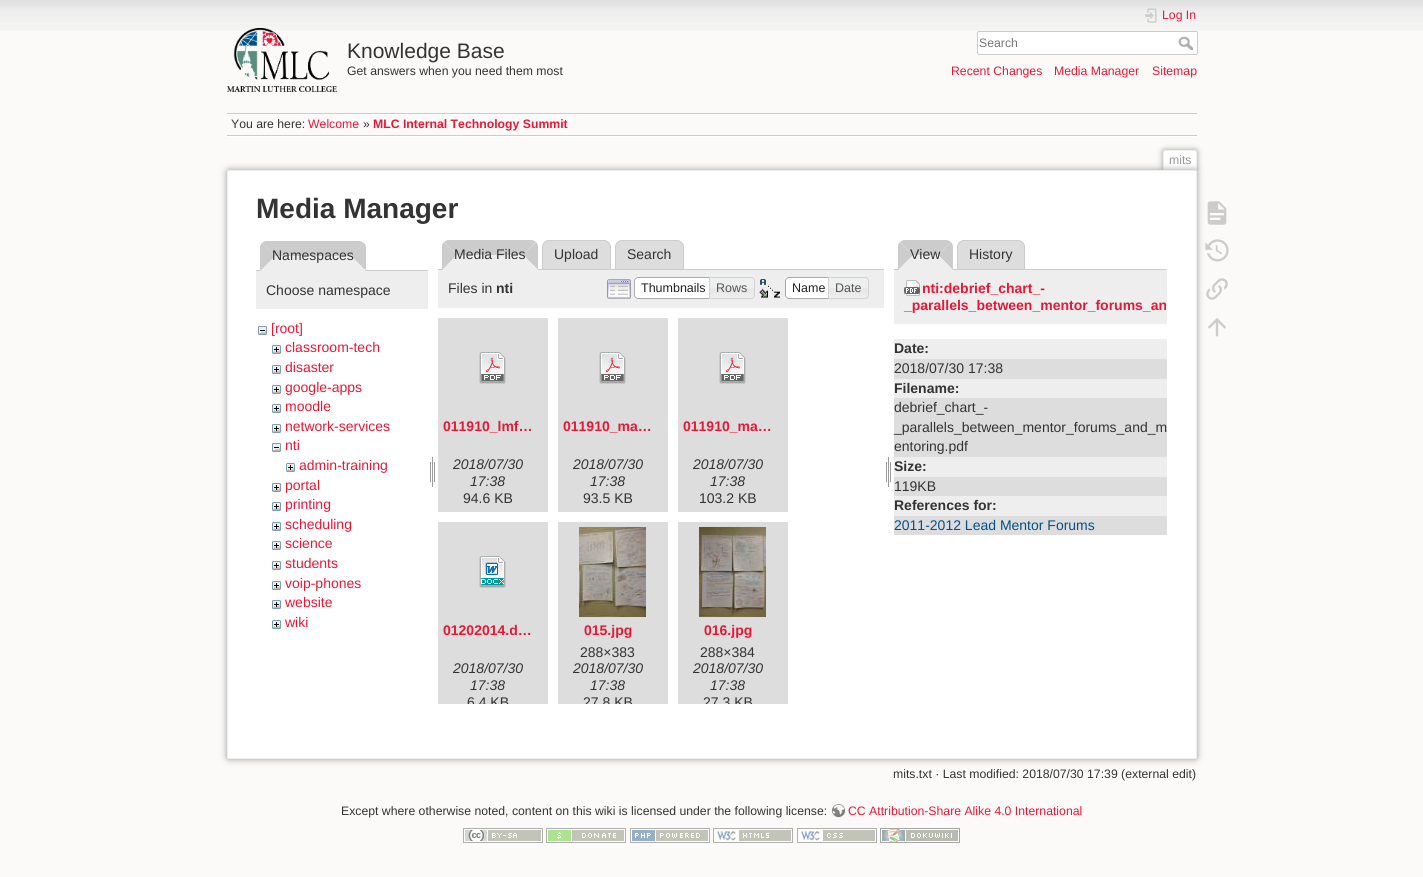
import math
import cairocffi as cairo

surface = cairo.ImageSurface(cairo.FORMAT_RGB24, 1423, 877)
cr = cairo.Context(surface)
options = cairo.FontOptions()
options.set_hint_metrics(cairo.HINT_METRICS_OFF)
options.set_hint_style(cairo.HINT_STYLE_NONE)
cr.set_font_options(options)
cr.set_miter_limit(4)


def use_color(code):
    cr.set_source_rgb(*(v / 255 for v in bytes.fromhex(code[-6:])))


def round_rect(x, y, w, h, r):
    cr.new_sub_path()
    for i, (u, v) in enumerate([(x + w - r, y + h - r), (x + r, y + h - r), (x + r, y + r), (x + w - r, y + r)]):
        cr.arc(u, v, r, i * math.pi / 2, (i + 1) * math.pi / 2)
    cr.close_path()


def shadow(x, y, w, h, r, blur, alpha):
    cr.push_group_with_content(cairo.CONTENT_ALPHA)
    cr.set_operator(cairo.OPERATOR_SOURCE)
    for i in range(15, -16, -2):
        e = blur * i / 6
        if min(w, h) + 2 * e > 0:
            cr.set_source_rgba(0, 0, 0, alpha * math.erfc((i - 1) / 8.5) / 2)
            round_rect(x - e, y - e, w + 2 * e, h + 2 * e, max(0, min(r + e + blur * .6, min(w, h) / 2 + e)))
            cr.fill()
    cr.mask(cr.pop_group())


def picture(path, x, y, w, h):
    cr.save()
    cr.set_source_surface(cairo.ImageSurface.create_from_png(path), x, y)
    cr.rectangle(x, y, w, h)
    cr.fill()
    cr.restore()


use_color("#fbfaf9")
cr.paint()
picture("img1.png", 0, 0, 1423, 31)
picture("img2.png", 227, 28, 110, 64)
cr.select_font_face("Liberation Sans")
cr.set_font_size(21)
use_color("#333333")
cr.move_to(347, 58)
cr.show_text("Knowledge Base")
cr.set_font_size(12.25)
cr.move_to(347, 75)
cr.show_text("Get answers when you need them most")
picture("img3.png", 1145, 8, 12, 15)
use_color("#e31937")
cr.move_to(1162, 19)
cr.show_text("Log In")
use_color("#ffffff")
round_rect(977.5, 31.5, 220, 23, 1.5)
cr.fill_preserve()
use_color("#cccccc")
cr.set_line_width(1)
cr.stroke()
use_color("#757575")
cr.move_to(979, 47)
cr.show_text("Search")
picture("img4.png", 1178, 36, 15, 14)
use_color("#e31937")
cr.move_to(951, 75)
cr.show_text("Recent Changes")
cr.move_to(1054, 75)
cr.show_text("Media Manager")
cr.move_to(1152, 75)
cr.show_text("Sitemap")
use_color("#cccccc")
cr.rectangle(227, 113, 970, 1)
cr.fill()
use_color("#ffffff")
cr.rectangle(227, 136, 970, 1)
cr.fill()
cr.rectangle(227, 114, 970, 1)
cr.fill()
use_color("#cccccc")
cr.rectangle(227, 135, 970, 1)
cr.fill()
use_color("#333333")
cr.move_to(231, 128)
cr.show_text("You are here:")
use_color("#e31937")
cr.move_to(308, 128)
cr.show_text("Welcome")
use_color("#333333")
cr.move_to(363, 128)
cr.show_text("»")
cr.select_font_face("Liberation Sans", cairo.FONT_SLANT_NORMAL, cairo.FONT_WEIGHT_BOLD)
use_color("#e31937")
cr.move_to(373, 128)
cr.show_text("MLC Internal Technology Summit")
cr.save()
cr.rectangle(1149, 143, 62, 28)
cr.clip()
use_color("#999999")
shadow(1163, 150, 34, 21, 2, 3, 1)
cr.restore()
use_color("#ffffff")
cr.new_path()
cr.move_to(1165, 151)
cr.line_to(1195, 151)
cr.curve_to(1195.5, 151, 1196, 151.5, 1196, 152)
cr.line_to(1196, 171)
cr.line_to(1164, 171)
cr.line_to(1164, 152)
cr.curve_to(1164, 151.5, 1164.5, 151, 1165, 151)
cr.close_path()
cr.fill()
use_color("#eeeeee")
cr.rectangle(1164, 150, 32, 1)
cr.fill()
cr.rectangle(1196, 151, 1, 20)
cr.fill()
cr.rectangle(1163, 151, 1, 20)
cr.fill()
cr.select_font_face("Liberation Sans")
use_color("#999999")
cr.move_to(1169, 164)
cr.show_text("mits")
use_color("#999999")
shadow(227, 170, 970, 589, 2, 3.5, 1)
use_color("#ffffff")
round_rect(227.5, 170.5, 969, 588, 1.5)
cr.fill_preserve()
use_color("#eeeeee")
cr.stroke()
cr.select_font_face("Liberation Sans", cairo.FONT_SLANT_NORMAL, cairo.FONT_WEIGHT_BOLD)
cr.set_font_size(28)
use_color("#333333")
cr.move_to(256, 218)
cr.show_text("Media Manager")
use_color("#cccccc")
cr.rectangle(256, 270, 172, 1)
cr.fill()
use_color("#eeeeee")
cr.new_path()
cr.move_to(267, 241)
cr.line_to(359, 241)
cr.curve_to(363, 241, 366, 244, 366, 248)
cr.line_to(366, 271)
cr.line_to(260, 271)
cr.line_to(260, 248)
cr.curve_to(260, 244, 263, 241, 267, 241)
cr.close_path()
cr.fill()
use_color("#cccccc")
cr.new_path()
cr.move_to(267, 241)
cr.line_to(360, 241)
cr.line_to(364, 243)
cr.line_to(351, 256)
cr.line_to(275, 256)
cr.line_to(262, 243)
cr.curve_to(263, 242, 265, 241, 267, 241)
cr.close_path()
cr.fill()
cr.new_path()
cr.move_to(364, 243)
cr.line_to(351, 256)
cr.line_to(366, 271)
cr.line_to(366, 248)
cr.curve_to(366, 246, 365, 244, 364, 243)
cr.close_path()
cr.fill()
use_color("#eeeeee")
cr.new_path()
cr.move_to(366, 271)
cr.line_to(351, 256)
cr.line_to(275, 256)
cr.line_to(260, 271)
cr.close_path()
cr.fill()
use_color("#cccccc")
cr.new_path()
cr.move_to(260, 271)
cr.line_to(260, 248)
cr.curve_to(260, 246, 261, 244, 262, 243)
cr.line_to(275, 256)
cr.close_path()
cr.fill()
cr.select_font_face("Liberation Sans")
cr.set_font_size(14)
use_color("#333333")
cr.move_to(272, 260)
cr.show_text("Namespaces")
use_color("#eeeeee")
cr.rectangle(256, 271, 172, 38)
cr.fill()
use_color("#333333")
cr.move_to(266, 295)
cr.show_text("Choose namespace")
picture("img5.png", 258, 326, 9, 9)
use_color("#e31937")
cr.move_to(271, 333)
cr.show_text("[root]")
picture("img6.png", 272, 345, 9, 9)
cr.move_to(285, 352)
cr.show_text("classroom-tech")
picture("img6.png", 272, 365, 9, 9)
cr.move_to(285, 372)
cr.show_text("disaster")
picture("img6.png", 272, 385, 9, 9)
cr.move_to(285, 392)
cr.show_text("google-apps")
picture("img6.png", 272, 404, 9, 9)
cr.move_to(285, 411)
cr.show_text("moodle")
picture("img6.png", 272, 424, 9, 9)
cr.move_to(285, 431)
cr.show_text("network-services")
picture("img5.png", 272, 443, 9, 9)
cr.move_to(285, 450)
cr.show_text("nti")
picture("img6.png", 286, 463, 9, 9)
cr.move_to(299, 470)
cr.show_text("admin-training")
picture("img6.png", 272, 483, 9, 9)
cr.move_to(285, 490)
cr.show_text("portal")
picture("img6.png", 272, 502, 9, 9)
cr.move_to(285, 509)
cr.show_text("printing")
picture("img6.png", 272, 522, 9, 9)
cr.move_to(285, 529)
cr.show_text("scheduling")
picture("img6.png", 272, 541, 9, 9)
cr.move_to(285, 548)
cr.show_text("science")
picture("img6.png", 272, 561, 9, 9)
cr.move_to(285, 568)
cr.show_text("students")
picture("img6.png", 272, 581, 9, 9)
cr.move_to(285, 588)
cr.show_text("voip-phones")
picture("img6.png", 272, 600, 9, 9)
cr.move_to(285, 607)
cr.show_text("website")
picture("img6.png", 272, 620, 9, 9)
cr.move_to(285, 627)
cr.show_text("wiki")
picture("img7.png", 430, 456, 5, 31)
use_color("#cccccc")
cr.new_path()
cr.move_to(449, 240)
cr.line_to(531, 240)
cr.curve_to(533, 240, 535, 241, 536, 242)
cr.line_to(523, 255)
cr.line_to(457, 255)
cr.line_to(444, 242)
cr.curve_to(445, 241, 447, 240, 449, 240)
cr.close_path()
cr.fill()
use_color("#dddddd")
cr.new_path()
cr.move_to(549, 240.5)
cr.line_to(604, 240.5)
cr.curve_to(607.5, 240.5, 610.5, 243.5, 610.5, 247)
cr.line_to(610.5, 269.5)
cr.line_to(542.5, 269.5)
cr.line_to(542.5, 247)
cr.curve_to(542.5, 243.5, 545.5, 240.5, 549, 240.5)
cr.close_path()
cr.fill_preserve()
use_color("#cccccc")
cr.stroke()
use_color("#dddddd")
cr.new_path()
cr.move_to(622, 240.5)
cr.line_to(677, 240.5)
cr.curve_to(680.5, 240.5, 683.5, 243.5, 683.5, 247)
cr.line_to(683.5, 269.5)
cr.line_to(615.5, 269.5)
cr.line_to(615.5, 247)
cr.curve_to(615.5, 243.5, 618.5, 240.5, 622, 240.5)
cr.close_path()
cr.fill_preserve()
use_color("#cccccc")
cr.stroke()
cr.rectangle(438, 269, 446, 1)
cr.fill()
cr.new_path()
cr.move_to(536, 242)
cr.line_to(523, 255)
cr.line_to(538, 270)
cr.line_to(538, 247)
cr.curve_to(538, 245, 537, 243, 536, 242)
cr.close_path()
cr.fill()
use_color("#eeeeee")
cr.new_path()
cr.move_to(538, 270)
cr.line_to(523, 255)
cr.line_to(457, 255)
cr.line_to(442, 270)
cr.close_path()
cr.fill()
use_color("#cccccc")
cr.new_path()
cr.move_to(442, 270)
cr.line_to(442, 247)
cr.curve_to(442, 245, 443, 243, 444, 242)
cr.line_to(457, 255)
cr.close_path()
cr.fill()
use_color("#333333")
cr.move_to(454, 259)
cr.show_text("Media Files")
cr.move_to(554, 259)
cr.show_text("Upload")
cr.move_to(627, 259)
cr.show_text("Search")
use_color("#eeeeee")
cr.rectangle(438, 270, 446, 38)
cr.fill()
use_color("#333333")
cr.move_to(448, 293)
cr.show_text("Files in")
cr.select_font_face("Liberation Sans", cairo.FONT_SLANT_NORMAL, cairo.FONT_WEIGHT_BOLD)
cr.move_to(496, 293)
cr.show_text("nti")
picture("img8.png", 607, 279, 24, 20)
use_color("#ffffff")
cr.rectangle(634, 277, 75, 22)
cr.fill()
cr.new_path()
cr.move_to(638, 277.5)
cr.line_to(713.5, 277.5)
cr.line_to(713.5, 298.5)
cr.line_to(638, 298.5)
cr.curve_to(636, 298.5, 634.5, 297, 634.5, 295)
cr.line_to(634.5, 281)
cr.curve_to(634.5, 279, 636, 277.5, 638, 277.5)
cr.close_path()
use_color("#aaaaaa")
cr.stroke()
cr.select_font_face("Liberation Sans")
cr.set_font_size(12.5)
use_color("#212121")
cr.move_to(641, 292)
cr.show_text("Thumbnails")
picture("img9.png", 710, 277, 45, 22)
cr.new_path()
cr.move_to(709.5, 277.5)
cr.line_to(751, 277.5)
cr.curve_to(753, 277.5, 754.5, 279, 754.5, 281)
cr.line_to(754.5, 295)
cr.curve_to(754.5, 297, 753, 298.5, 751, 298.5)
cr.line_to(709.5, 298.5)
cr.close_path()
use_color("#d3d3d3")
cr.stroke()
use_color("#555555")
cr.move_to(716, 292)
cr.show_text("Rows")
picture("img10.png", 759, 279, 21, 19)
use_color("#ffffff")
cr.rectangle(785, 277, 43, 22)
cr.fill()
cr.new_path()
cr.move_to(789, 277.5)
cr.line_to(832.5, 277.5)
cr.line_to(832.5, 298.5)
cr.line_to(789, 298.5)
cr.curve_to(787, 298.5, 785.5, 297, 785.5, 295)
cr.line_to(785.5, 281)
cr.curve_to(785.5, 279, 787, 277.5, 789, 277.5)
cr.close_path()
use_color("#aaaaaa")
cr.stroke()
use_color("#212121")
cr.move_to(792, 292)
cr.show_text("Name")
picture("img11.png", 829, 277, 40, 22)
cr.new_path()
cr.move_to(828.5, 277.5)
cr.line_to(865, 277.5)
cr.curve_to(867, 277.5, 868.5, 279, 868.5, 281)
cr.line_to(868.5, 295)
cr.curve_to(868.5, 297, 867, 298.5, 865, 298.5)
cr.line_to(828.5, 298.5)
cr.close_path()
use_color("#d3d3d3")
cr.stroke()
use_color("#555555")
cr.move_to(835, 292)
cr.show_text("Date")
use_color("#dddddd")
cr.rectangle(438, 318, 110, 194)
cr.fill()
picture("img12.png", 479, 352, 27, 32)
cr.select_font_face("Liberation Sans", cairo.FONT_SLANT_NORMAL, cairo.FONT_WEIGHT_BOLD)
cr.set_font_size(14)
use_color("#e31937")
cr.move_to(443, 431)
cr.show_text("011910_lmf…")
cr.select_font_face("Liberation Sans", cairo.FONT_SLANT_ITALIC)
use_color("#333333")
cr.move_to(453, 469)
cr.show_text("2018/07/30")
cr.move_to(470, 486)
cr.show_text("17:38")
cr.select_font_face("Liberation Sans")
cr.move_to(463, 503)
cr.show_text("94.6 KB")
use_color("#dddddd")
cr.rectangle(558, 318, 110, 194)
cr.fill()
picture("img12.png", 599, 352, 27, 32)
cr.select_font_face("Liberation Sans", cairo.FONT_SLANT_NORMAL, cairo.FONT_WEIGHT_BOLD)
use_color("#e31937")
cr.move_to(563, 431)
cr.show_text("011910_ma…")
cr.select_font_face("Liberation Sans", cairo.FONT_SLANT_ITALIC)
use_color("#333333")
cr.move_to(573, 469)
cr.show_text("2018/07/30")
cr.move_to(590, 486)
cr.show_text("17:38")
cr.select_font_face("Liberation Sans")
cr.move_to(583, 503)
cr.show_text("93.5 KB")
use_color("#dddddd")
cr.rectangle(678, 318, 110, 194)
cr.fill()
picture("img12.png", 719, 352, 27, 32)
cr.select_font_face("Liberation Sans", cairo.FONT_SLANT_NORMAL, cairo.FONT_WEIGHT_BOLD)
use_color("#e31937")
cr.move_to(683, 431)
cr.show_text("011910_ma…")
cr.select_font_face("Liberation Sans", cairo.FONT_SLANT_ITALIC)
use_color("#333333")
cr.move_to(693, 469)
cr.show_text("2018/07/30")
cr.move_to(710, 486)
cr.show_text("17:38")
cr.select_font_face("Liberation Sans")
cr.move_to(699, 503)
cr.show_text("103.2 KB")
use_color("#dddddd")
cr.rectangle(438, 522, 110, 182)
cr.fill()
picture("img13.png", 479, 556, 27, 32)
cr.select_font_face("Liberation Sans", cairo.FONT_SLANT_NORMAL, cairo.FONT_WEIGHT_BOLD)
use_color("#e31937")
cr.move_to(443, 635)
cr.show_text("01202014.d…")
cr.select_font_face("Liberation Sans", cairo.FONT_SLANT_ITALIC)
use_color("#333333")
cr.move_to(453, 673)
cr.show_text("2018/07/30")
cr.move_to(470, 690)
cr.show_text("17:38")
cr.save()
cr.rectangle(443, 694, 90, 10)
cr.clip()
cr.select_font_face("Liberation Sans")
cr.move_to(467, 707)
cr.show_text("6.4 KB")
cr.restore()
use_color("#dddddd")
cr.rectangle(558, 522, 110, 182)
cr.fill()
picture("img14.png", 579, 527, 67, 90)
cr.select_font_face("Liberation Sans", cairo.FONT_SLANT_NORMAL, cairo.FONT_WEIGHT_BOLD)
use_color("#e31937")
cr.move_to(584, 635)
cr.show_text("015.jpg")
cr.select_font_face("Liberation Sans")
use_color("#333333")
cr.move_to(580, 657)
cr.show_text("288×383")
cr.select_font_face("Liberation Sans", cairo.FONT_SLANT_ITALIC)
cr.move_to(573, 673)
cr.show_text("2018/07/30")
cr.move_to(590, 690)
cr.show_text("17:38")
cr.save()
cr.rectangle(563, 694, 90, 10)
cr.clip()
cr.select_font_face("Liberation Sans")
cr.move_to(583, 707)
cr.show_text("27.8 KB")
cr.restore()
use_color("#dddddd")
cr.rectangle(678, 522, 110, 182)
cr.fill()
picture("img15.png", 699, 527, 67, 90)
cr.select_font_face("Liberation Sans", cairo.FONT_SLANT_NORMAL, cairo.FONT_WEIGHT_BOLD)
use_color("#e31937")
cr.move_to(704, 635)
cr.show_text("016.jpg")
cr.select_font_face("Liberation Sans")
use_color("#333333")
cr.move_to(700, 657)
cr.show_text("288×384")
cr.select_font_face("Liberation Sans", cairo.FONT_SLANT_ITALIC)
cr.move_to(693, 673)
cr.show_text("2018/07/30")
cr.move_to(710, 690)
cr.show_text("17:38")
cr.save()
cr.rectangle(683, 694, 90, 10)
cr.clip()
cr.select_font_face("Liberation Sans")
cr.move_to(703, 707)
cr.show_text("27.3 KB")
cr.restore()
picture("img7.png", 886, 456, 5, 31)
use_color("#cccccc")
cr.new_path()
cr.move_to(905, 240)
cr.line_to(946, 240)
cr.curve_to(948, 240, 950, 241, 951, 242)
cr.line_to(938, 255)
cr.line_to(913, 255)
cr.line_to(900, 242)
cr.curve_to(901, 241, 903, 240, 905, 240)
cr.close_path()
cr.fill()
use_color("#dddddd")
cr.new_path()
cr.move_to(964, 240.5)
cr.line_to(1018, 240.5)
cr.curve_to(1021.5, 240.5, 1024.5, 243.5, 1024.5, 247)
cr.line_to(1024.5, 269.5)
cr.line_to(957.5, 269.5)
cr.line_to(957.5, 247)
cr.curve_to(957.5, 243.5, 960.5, 240.5, 964, 240.5)
cr.close_path()
cr.fill_preserve()
use_color("#cccccc")
cr.stroke()
cr.rectangle(894, 269, 273, 1)
cr.fill()
cr.new_path()
cr.move_to(951, 242)
cr.line_to(938, 255)
cr.line_to(953, 270)
cr.line_to(953, 247)
cr.curve_to(953, 245, 952, 243, 951, 242)
cr.close_path()
cr.fill()
use_color("#eeeeee")
cr.new_path()
cr.move_to(953, 270)
cr.line_to(938, 255)
cr.line_to(913, 255)
cr.line_to(898, 270)
cr.close_path()
cr.fill()
use_color("#cccccc")
cr.new_path()
cr.move_to(898, 270)
cr.line_to(898, 247)
cr.curve_to(898, 245, 899, 243, 900, 242)
cr.line_to(913, 255)
cr.close_path()
cr.fill()
cr.select_font_face("Liberation Sans")
use_color("#333333")
cr.move_to(910, 259)
cr.show_text("View")
cr.move_to(969, 259)
cr.show_text("History")
use_color("#eeeeee")
cr.rectangle(894, 270, 273, 54)
cr.fill()
picture("img16.png", 904, 280, 16, 16)
cr.select_font_face("Liberation Sans", cairo.FONT_SLANT_NORMAL, cairo.FONT_WEIGHT_BOLD)
use_color("#e31937")
cr.move_to(922, 293)
cr.show_text("nti:debrief_chart_-")
cr.move_to(904, 310)
cr.show_text("_parallels_between_mentor_forums_an")
use_color("#eeeeee")
cr.rectangle(894, 339, 273, 20)
cr.fill()
use_color("#333333")
cr.move_to(894, 353)
cr.show_text("Date:")
use_color("#dddddd")
cr.rectangle(894, 359, 273, 20)
cr.fill()
cr.select_font_face("Liberation Sans")
use_color("#333333")
cr.move_to(894, 373)
cr.show_text("2018/07/30 17:38")
use_color("#eeeeee")
cr.rectangle(894, 379, 273, 19)
cr.fill()
cr.select_font_face("Liberation Sans", cairo.FONT_SLANT_NORMAL, cairo.FONT_WEIGHT_BOLD)
use_color("#333333")
cr.move_to(894, 393)
cr.show_text("Filename:")
use_color("#dddddd")
cr.rectangle(894, 398, 273, 59)
cr.fill()
cr.select_font_face("Liberation Sans")
use_color("#333333")
cr.move_to(894, 412)
cr.show_text("debrief_chart_-")
cr.move_to(894, 432)
cr.show_text("_parallels_between_mentor_forums_and_m")
cr.move_to(894, 451)
cr.show_text("entoring.pdf")
use_color("#eeeeee")
cr.rectangle(894, 457, 273, 20)
cr.fill()
cr.select_font_face("Liberation Sans", cairo.FONT_SLANT_NORMAL, cairo.FONT_WEIGHT_BOLD)
use_color("#333333")
cr.move_to(894, 471)
cr.show_text("Size:")
use_color("#dddddd")
cr.rectangle(894, 477, 273, 19)
cr.fill()
cr.select_font_face("Liberation Sans")
use_color("#333333")
cr.move_to(894, 491)
cr.show_text("119KB")
use_color("#eeeeee")
cr.rectangle(894, 496, 273, 20)
cr.fill()
cr.select_font_face("Liberation Sans", cairo.FONT_SLANT_NORMAL, cairo.FONT_WEIGHT_BOLD)
use_color("#333333")
cr.move_to(894, 510)
cr.show_text("References for:")
use_color("#dddddd")
cr.rectangle(894, 516, 273, 19)
cr.fill()
cr.select_font_face("Liberation Sans")
use_color("#005288")
cr.move_to(894, 530)
cr.show_text("2011-2012 Lead Mentor Forums")
cr.set_font_size(12.25)
use_color("#333333")
cr.move_to(893, 778)
cr.show_text("mits.txt · Last modified: 2018/07/30 17:39 (external edit)")
picture("img17.png", 1207, 201, 20, 24)
picture("img18.png", 1205, 239, 24, 23)
picture("img19.png", 1206, 278, 22, 22)
picture("img20.png", 1208, 318, 18, 19)
cr.move_to(341, 815)
cr.show_text("Except where otherwise noted, content on this wiki is licensed under the following license:")
picture("img21.png", 832, 804, 14, 14)
use_color("#e31937")
cr.move_to(848, 815)
cr.show_text("CC Attribution-Share Alike 4.0 International")
picture("img22.png", 463, 828, 80, 15)
picture("img23.png", 546, 828, 80, 15)
picture("img24.png", 630, 828, 80, 15)
picture("img25.png", 713, 828, 80, 15)
picture("img26.png", 797, 828, 80, 15)
picture("img27.png", 880, 828, 80, 15)
surface.write_to_png("result.png")
